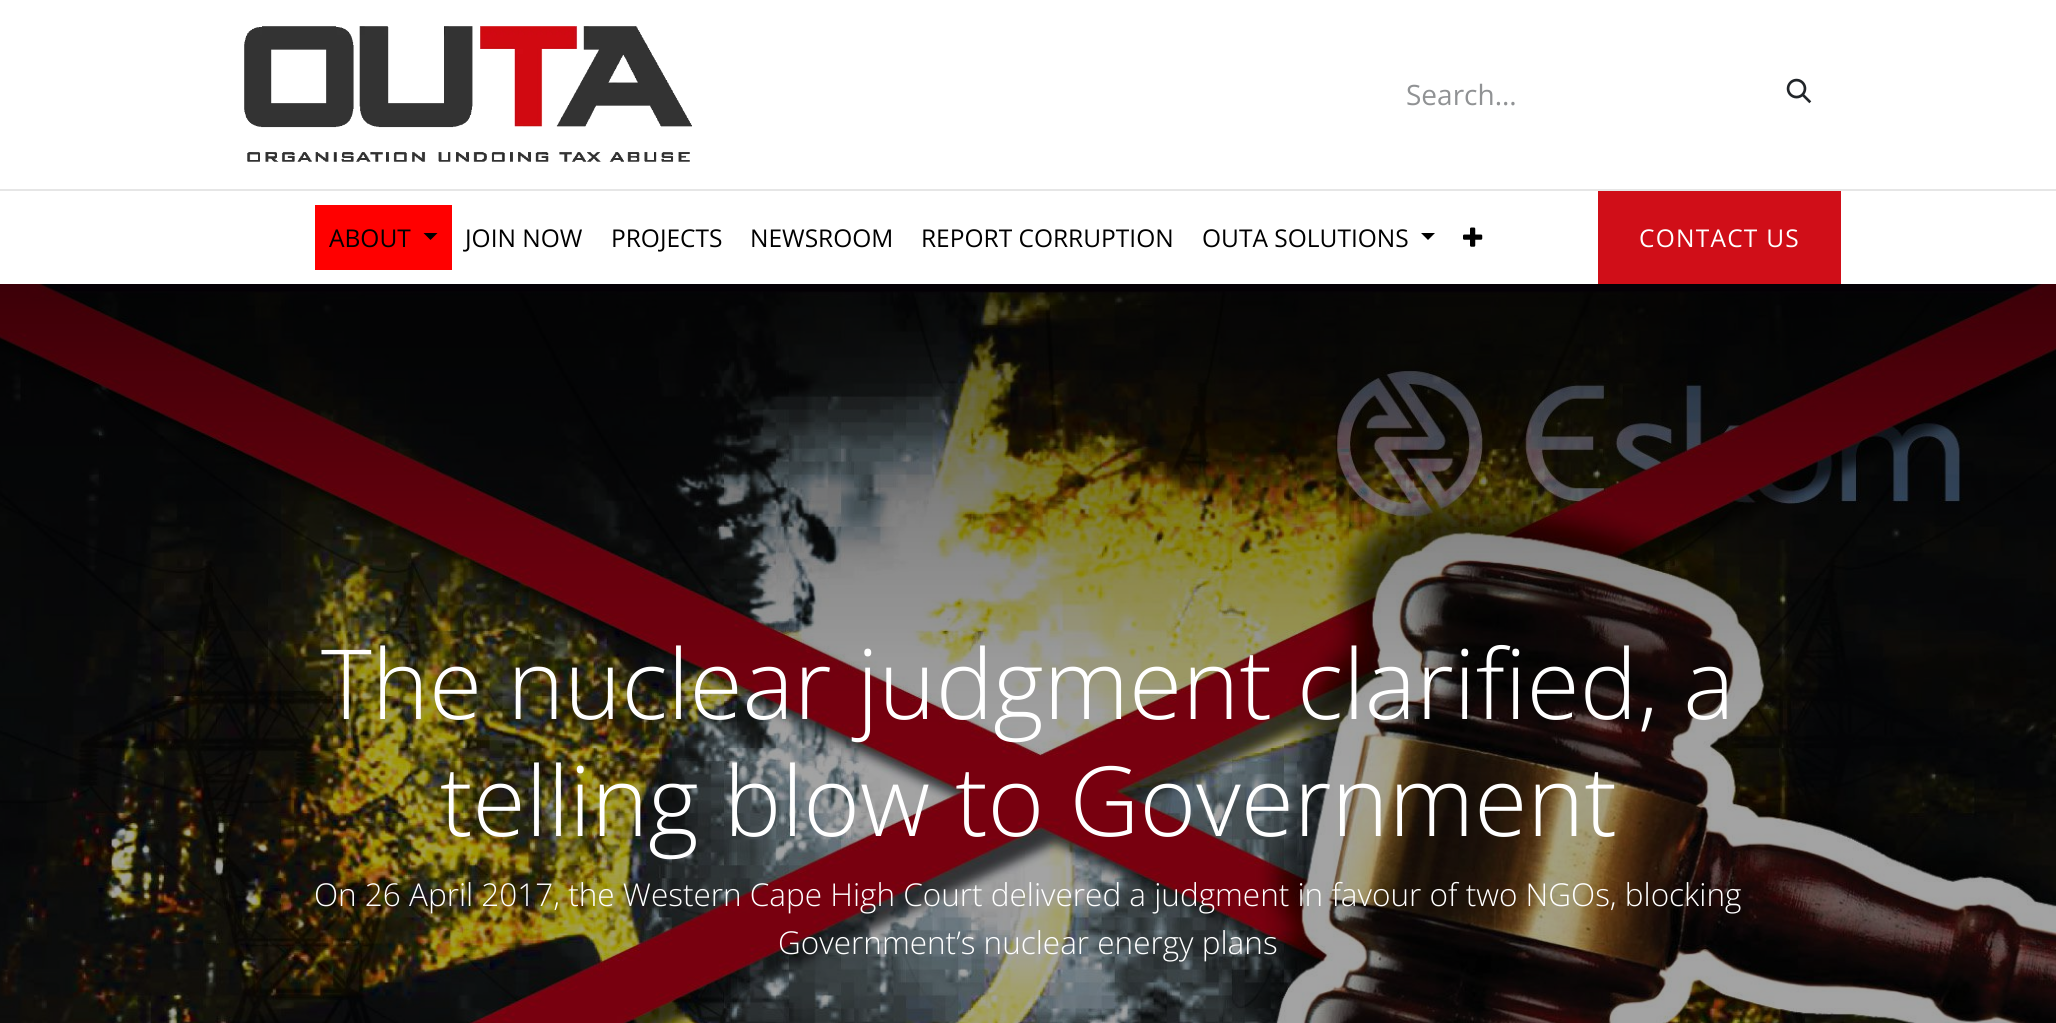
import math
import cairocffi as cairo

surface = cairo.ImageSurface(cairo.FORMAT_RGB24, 2056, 1023)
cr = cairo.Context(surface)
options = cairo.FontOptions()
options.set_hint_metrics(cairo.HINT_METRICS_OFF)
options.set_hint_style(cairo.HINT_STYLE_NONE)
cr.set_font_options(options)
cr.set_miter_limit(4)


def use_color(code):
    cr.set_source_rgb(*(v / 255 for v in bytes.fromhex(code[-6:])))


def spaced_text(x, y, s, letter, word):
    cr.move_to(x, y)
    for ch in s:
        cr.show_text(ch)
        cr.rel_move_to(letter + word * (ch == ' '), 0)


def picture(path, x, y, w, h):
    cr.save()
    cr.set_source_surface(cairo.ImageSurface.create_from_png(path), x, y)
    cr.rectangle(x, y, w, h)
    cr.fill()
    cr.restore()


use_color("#ffffff")
cr.paint()
picture("img1.png", 244, 26, 448, 136)
cr.select_font_face("Open Sans")
cr.set_font_size(28)
use_color("#909294")
cr.move_to(1406, 105)
cr.show_text("Search...")
picture("img2.png", 1786, 78, 26, 26)
use_color("#e6e6e6")
cr.rectangle(0, 189, 2056, 2)
cr.fill()
use_color("#ff0000")
cr.rectangle(315, 205, 137, 65)
cr.fill()
cr.set_font_size(24.5)
use_color("#000000")
cr.move_to(329, 247)
cr.show_text("ABOUT")
cr.new_path()
cr.move_to(423.5, 233)
cr.line_to(437.5, 233)
cr.line_to(430.5, 240)
cr.close_path()
cr.fill()
cr.move_to(465, 247)
cr.show_text("JOIN NOW")
cr.move_to(611, 247)
cr.show_text("PROJECTS")
cr.move_to(750, 247)
cr.show_text("NEWSROOM")
cr.move_to(921, 247)
cr.show_text("REPORT CORRUPTION")
cr.move_to(1202, 247)
cr.show_text("OUTA SOLUTIONS")
cr.new_path()
cr.move_to(1421, 233)
cr.line_to(1435, 233)
cr.line_to(1428, 240)
cr.close_path()
cr.fill()
picture("img3.png", 1463, 227, 20, 20)
use_color("#d00e18")
cr.rectangle(1598, 191, 243, 93)
cr.fill()
use_color("#ffffff")
spaced_text(1639, 247, "CONTACT US", 1.25, 0)
picture("img4.png", 0, 284, 2056, 739)
cr.select_font_face("Open Sans Light")
cr.set_font_size(96.8)
cr.move_to(321, 719)
cr.show_text("The nuclear judgment clarified, a")
cr.move_to(440, 836)
cr.show_text("telling blow to Government")
cr.set_font_size(31.5)
cr.move_to(314, 906)
cr.show_text("On 26 April 2017, the Western Cape High Court delivered a judgment in favour of two NGOs, blocking")
cr.move_to(778, 954)
cr.show_text("Government’s nuclear energy plans")
surface.write_to_png("result.png")
